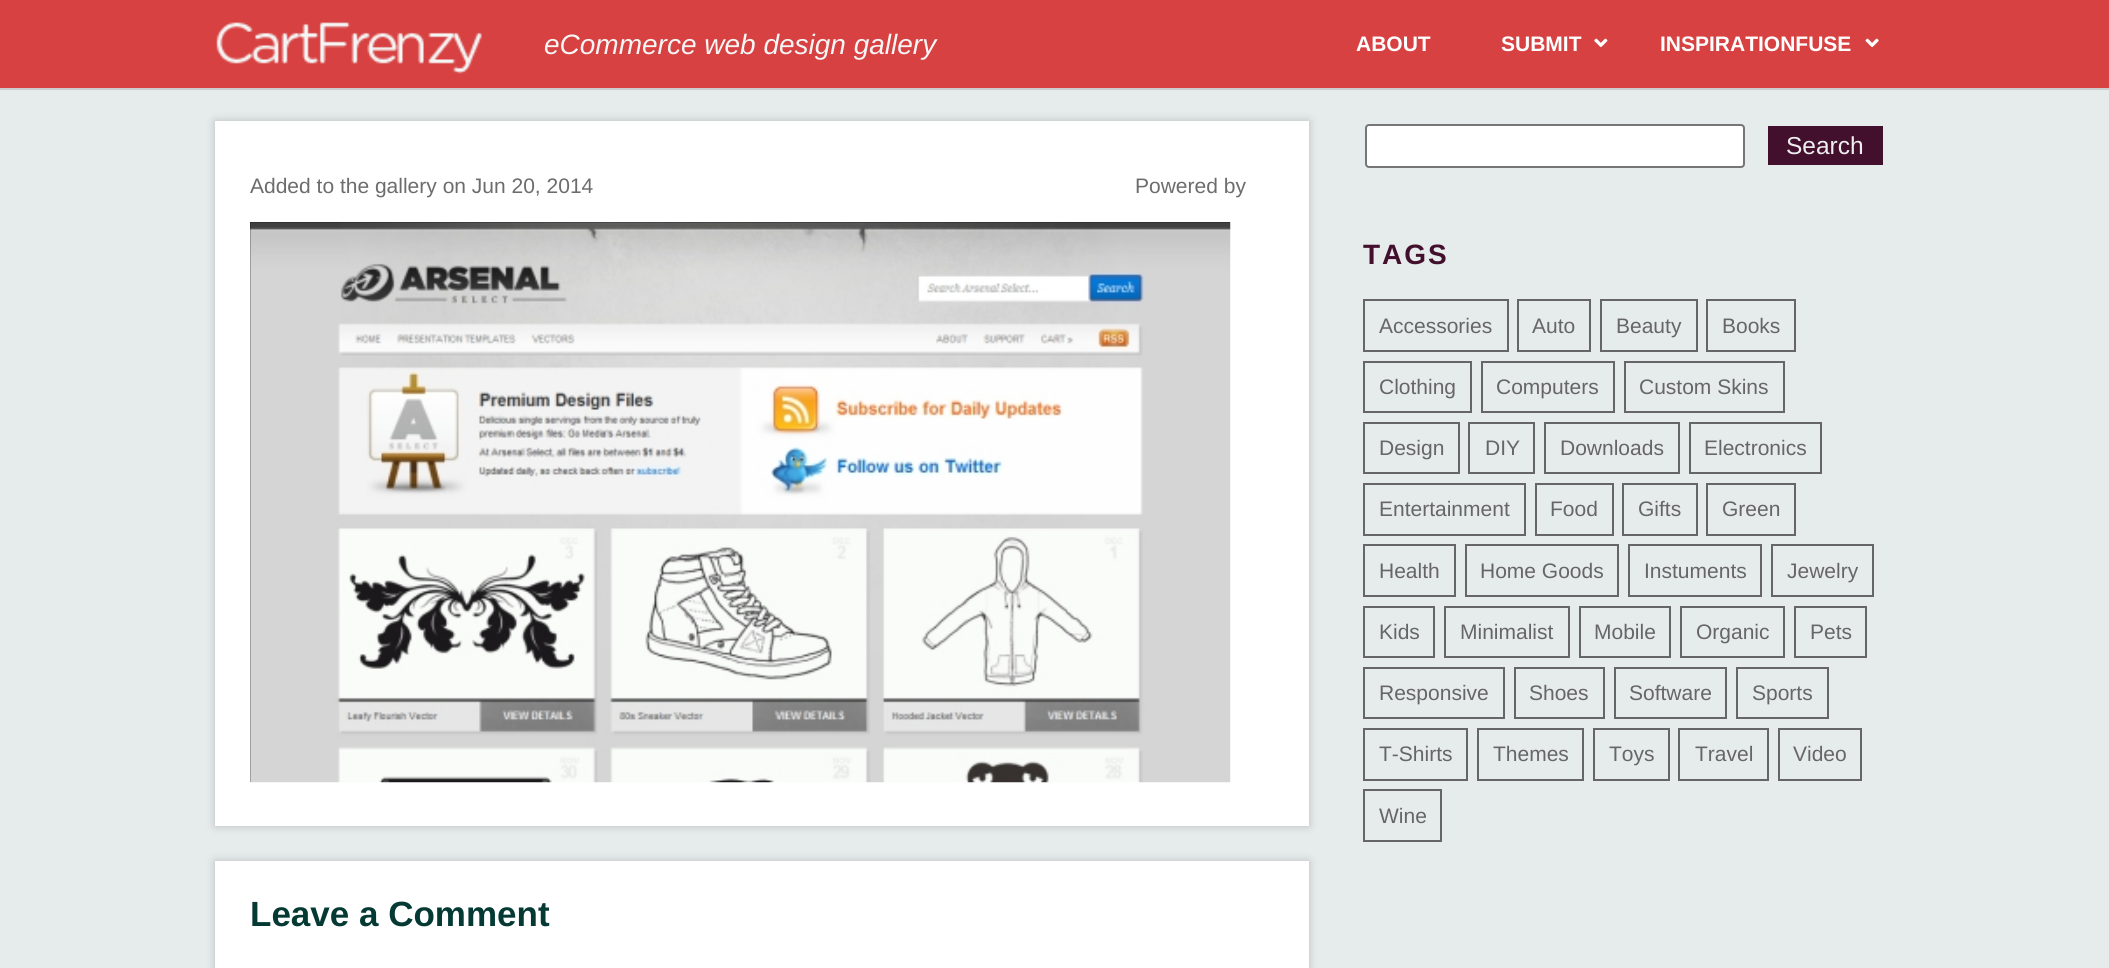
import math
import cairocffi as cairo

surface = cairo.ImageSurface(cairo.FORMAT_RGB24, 2109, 968)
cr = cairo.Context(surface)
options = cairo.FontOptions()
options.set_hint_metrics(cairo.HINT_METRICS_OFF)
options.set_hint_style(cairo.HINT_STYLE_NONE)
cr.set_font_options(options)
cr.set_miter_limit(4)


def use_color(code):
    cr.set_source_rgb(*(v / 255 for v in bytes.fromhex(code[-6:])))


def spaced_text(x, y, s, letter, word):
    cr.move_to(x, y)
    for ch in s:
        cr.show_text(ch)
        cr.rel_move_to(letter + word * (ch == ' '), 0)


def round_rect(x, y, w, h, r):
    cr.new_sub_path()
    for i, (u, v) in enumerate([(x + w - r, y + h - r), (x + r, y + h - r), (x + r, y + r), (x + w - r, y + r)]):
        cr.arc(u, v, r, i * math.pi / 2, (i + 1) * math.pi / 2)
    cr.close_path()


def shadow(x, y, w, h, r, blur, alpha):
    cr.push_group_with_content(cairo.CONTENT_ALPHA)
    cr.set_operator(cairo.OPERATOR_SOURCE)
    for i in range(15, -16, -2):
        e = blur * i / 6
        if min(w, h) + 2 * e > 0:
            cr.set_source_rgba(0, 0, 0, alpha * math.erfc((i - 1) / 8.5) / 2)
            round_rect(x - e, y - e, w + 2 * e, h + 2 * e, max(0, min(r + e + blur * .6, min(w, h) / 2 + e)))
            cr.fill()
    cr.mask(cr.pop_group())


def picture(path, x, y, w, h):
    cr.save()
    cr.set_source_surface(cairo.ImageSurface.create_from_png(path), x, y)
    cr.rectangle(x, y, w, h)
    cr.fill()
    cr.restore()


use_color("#e6ebec")
cr.paint()
use_color("#d74141")
cr.rectangle(0, 0, 2109, 88)
cr.fill()
use_color("#cccccc")
cr.rectangle(0, 88, 2109, 2)
cr.fill()
picture("img1.png", 216, 22, 266, 52)
cr.select_font_face("Liberation Sans", cairo.FONT_SLANT_ITALIC)
cr.set_font_size(28)
use_color("#f5f5f5")
cr.move_to(544, 54)
cr.show_text("eCommerce web design gallery")
cr.select_font_face("Liberation Sans", cairo.FONT_SLANT_NORMAL, cairo.FONT_WEIGHT_BOLD)
cr.set_font_size(21)
use_color("#ffffff")
cr.move_to(1356, 51)
cr.show_text("ABOUT")
cr.move_to(1501, 51)
cr.show_text("SUBMIT")
picture("img2.png", 1594, 38, 14, 10)
cr.move_to(1660, 51)
cr.show_text("INSPIRATIONFUSE")
picture("img3.png", 1865, 38, 14, 10)
use_color("#000000")
shadow(215, 121, 1094, 705, 0, 4.5, 0.2)
use_color("#ffffff")
cr.rectangle(215, 121, 1094, 705)
cr.fill()
cr.select_font_face("Liberation Sans")
use_color("#6c6c6c")
cr.move_to(250, 193)
cr.show_text("Added to the gallery on Jun 20, 2014")
cr.move_to(1135, 193)
cr.show_text("Powered by")
use_color("#000000")
cr.rectangle(250, 222, 980, 560)
cr.fill()
picture("img4.png", 250, 222, 981, 561)
use_color("#000000")
shadow(215, 861, 1094, 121, 0, 4.5, 0.2)
use_color("#ffffff")
cr.rectangle(215, 861, 1094, 107)
cr.fill()
cr.select_font_face("Liberation Sans", cairo.FONT_SLANT_NORMAL, cairo.FONT_WEIGHT_BOLD)
cr.set_font_size(35)
use_color("#053a34")
cr.move_to(250, 926)
cr.show_text("Leave a Comment")
use_color("#ffffff")
round_rect(1366, 125, 378, 42, 3)
cr.fill_preserve()
use_color("#767676")
cr.stroke()
use_color("#42102d")
cr.rectangle(1768, 126, 115, 39)
cr.fill()
cr.select_font_face("Liberation Sans")
cr.set_font_size(24.5)
use_color("#efefef")
cr.move_to(1786, 154)
cr.show_text("Search")
cr.select_font_face("Liberation Sans", cairo.FONT_SLANT_NORMAL, cairo.FONT_WEIGHT_BOLD)
cr.set_font_size(28)
use_color("#42102d")
spaced_text(1363, 264, "TAGS", 2, 0)
cr.rectangle(1364, 300, 144, 51)
use_color("#666666")
cr.stroke()
cr.select_font_face("Liberation Sans")
cr.set_font_size(21)
cr.move_to(1379, 333)
cr.show_text("Accessories")
cr.rectangle(1518, 300, 72, 51)
cr.stroke()
cr.move_to(1532, 333)
cr.show_text("Auto")
cr.rectangle(1601, 300, 96, 51)
cr.stroke()
cr.move_to(1616, 333)
cr.show_text("Beauty")
cr.rectangle(1707, 300, 88, 51)
cr.stroke()
cr.move_to(1722, 333)
cr.show_text("Books")
cr.rectangle(1364, 362, 107, 50)
cr.stroke()
cr.move_to(1379, 394)
cr.show_text("Clothing")
cr.rectangle(1482, 362, 132, 50)
cr.stroke()
cr.move_to(1496, 394)
cr.show_text("Computers")
cr.rectangle(1625, 362, 159, 50)
cr.stroke()
cr.move_to(1639, 394)
cr.show_text("Custom Skins")
cr.rectangle(1364, 423, 95, 50)
cr.stroke()
cr.move_to(1379, 455)
cr.show_text("Design")
cr.rectangle(1469, 423, 65, 50)
cr.stroke()
cr.move_to(1485, 455)
cr.show_text("DIY")
cr.rectangle(1545, 423, 134, 50)
cr.stroke()
cr.move_to(1560, 455)
cr.show_text("Downloads")
cr.rectangle(1690, 423, 131, 50)
cr.stroke()
cr.move_to(1704, 455)
cr.show_text("Electronics")
cr.rectangle(1364, 484, 161, 51)
cr.stroke()
cr.move_to(1379, 516)
cr.show_text("Entertainment")
cr.rectangle(1536, 484, 77, 51)
cr.stroke()
cr.move_to(1550, 516)
cr.show_text("Food")
cr.rectangle(1623, 484, 74, 51)
cr.stroke()
cr.move_to(1638, 516)
cr.show_text("Gifts")
cr.rectangle(1707, 484, 88, 51)
cr.stroke()
cr.move_to(1722, 516)
cr.show_text("Green")
cr.rectangle(1364, 545, 91, 51)
cr.stroke()
cr.move_to(1379, 578)
cr.show_text("Health")
cr.rectangle(1466, 545, 152, 51)
cr.stroke()
cr.move_to(1480, 578)
cr.show_text("Home Goods")
cr.rectangle(1629, 545, 132, 51)
cr.stroke()
cr.move_to(1644, 578)
cr.show_text("Instuments")
cr.rectangle(1772, 545, 101, 51)
cr.stroke()
cr.move_to(1787, 578)
cr.show_text("Jewelry")
cr.rectangle(1364, 607, 70, 50)
cr.stroke()
cr.move_to(1379, 639)
cr.show_text("Kids")
cr.rectangle(1445, 607, 124, 50)
cr.stroke()
cr.move_to(1460, 639)
cr.show_text("Minimalist")
cr.rectangle(1580, 607, 90, 50)
cr.stroke()
cr.move_to(1594, 639)
cr.show_text("Mobile")
cr.rectangle(1681, 607, 103, 50)
cr.stroke()
cr.move_to(1696, 639)
cr.show_text("Organic")
cr.rectangle(1795, 607, 71, 50)
cr.stroke()
cr.move_to(1810, 639)
cr.show_text("Pets")
cr.rectangle(1364, 668, 140, 50)
cr.stroke()
cr.move_to(1379, 700)
cr.show_text("Responsive")
cr.rectangle(1515, 668, 89, 50)
cr.stroke()
cr.move_to(1529, 700)
cr.show_text("Shoes")
cr.rectangle(1615, 668, 111, 50)
cr.stroke()
cr.move_to(1629, 700)
cr.show_text("Software")
cr.rectangle(1737, 668, 91, 50)
cr.stroke()
cr.move_to(1752, 700)
cr.show_text("Sports")
cr.rectangle(1364, 729, 103, 51)
cr.stroke()
cr.move_to(1379, 761)
cr.show_text("T-Shirts")
cr.rectangle(1478, 729, 105, 51)
cr.stroke()
cr.move_to(1493, 761)
cr.show_text("Themes")
cr.rectangle(1594, 729, 75, 51)
cr.stroke()
cr.move_to(1609, 761)
cr.show_text("Toys")
cr.rectangle(1679, 729, 89, 51)
cr.stroke()
cr.move_to(1695, 761)
cr.show_text("Travel")
cr.rectangle(1779, 729, 82, 51)
cr.stroke()
cr.move_to(1793, 761)
cr.show_text("Video")
cr.rectangle(1364, 790, 77, 51)
cr.stroke()
cr.move_to(1379, 823)
cr.show_text("Wine")
surface.write_to_png("result.png")
